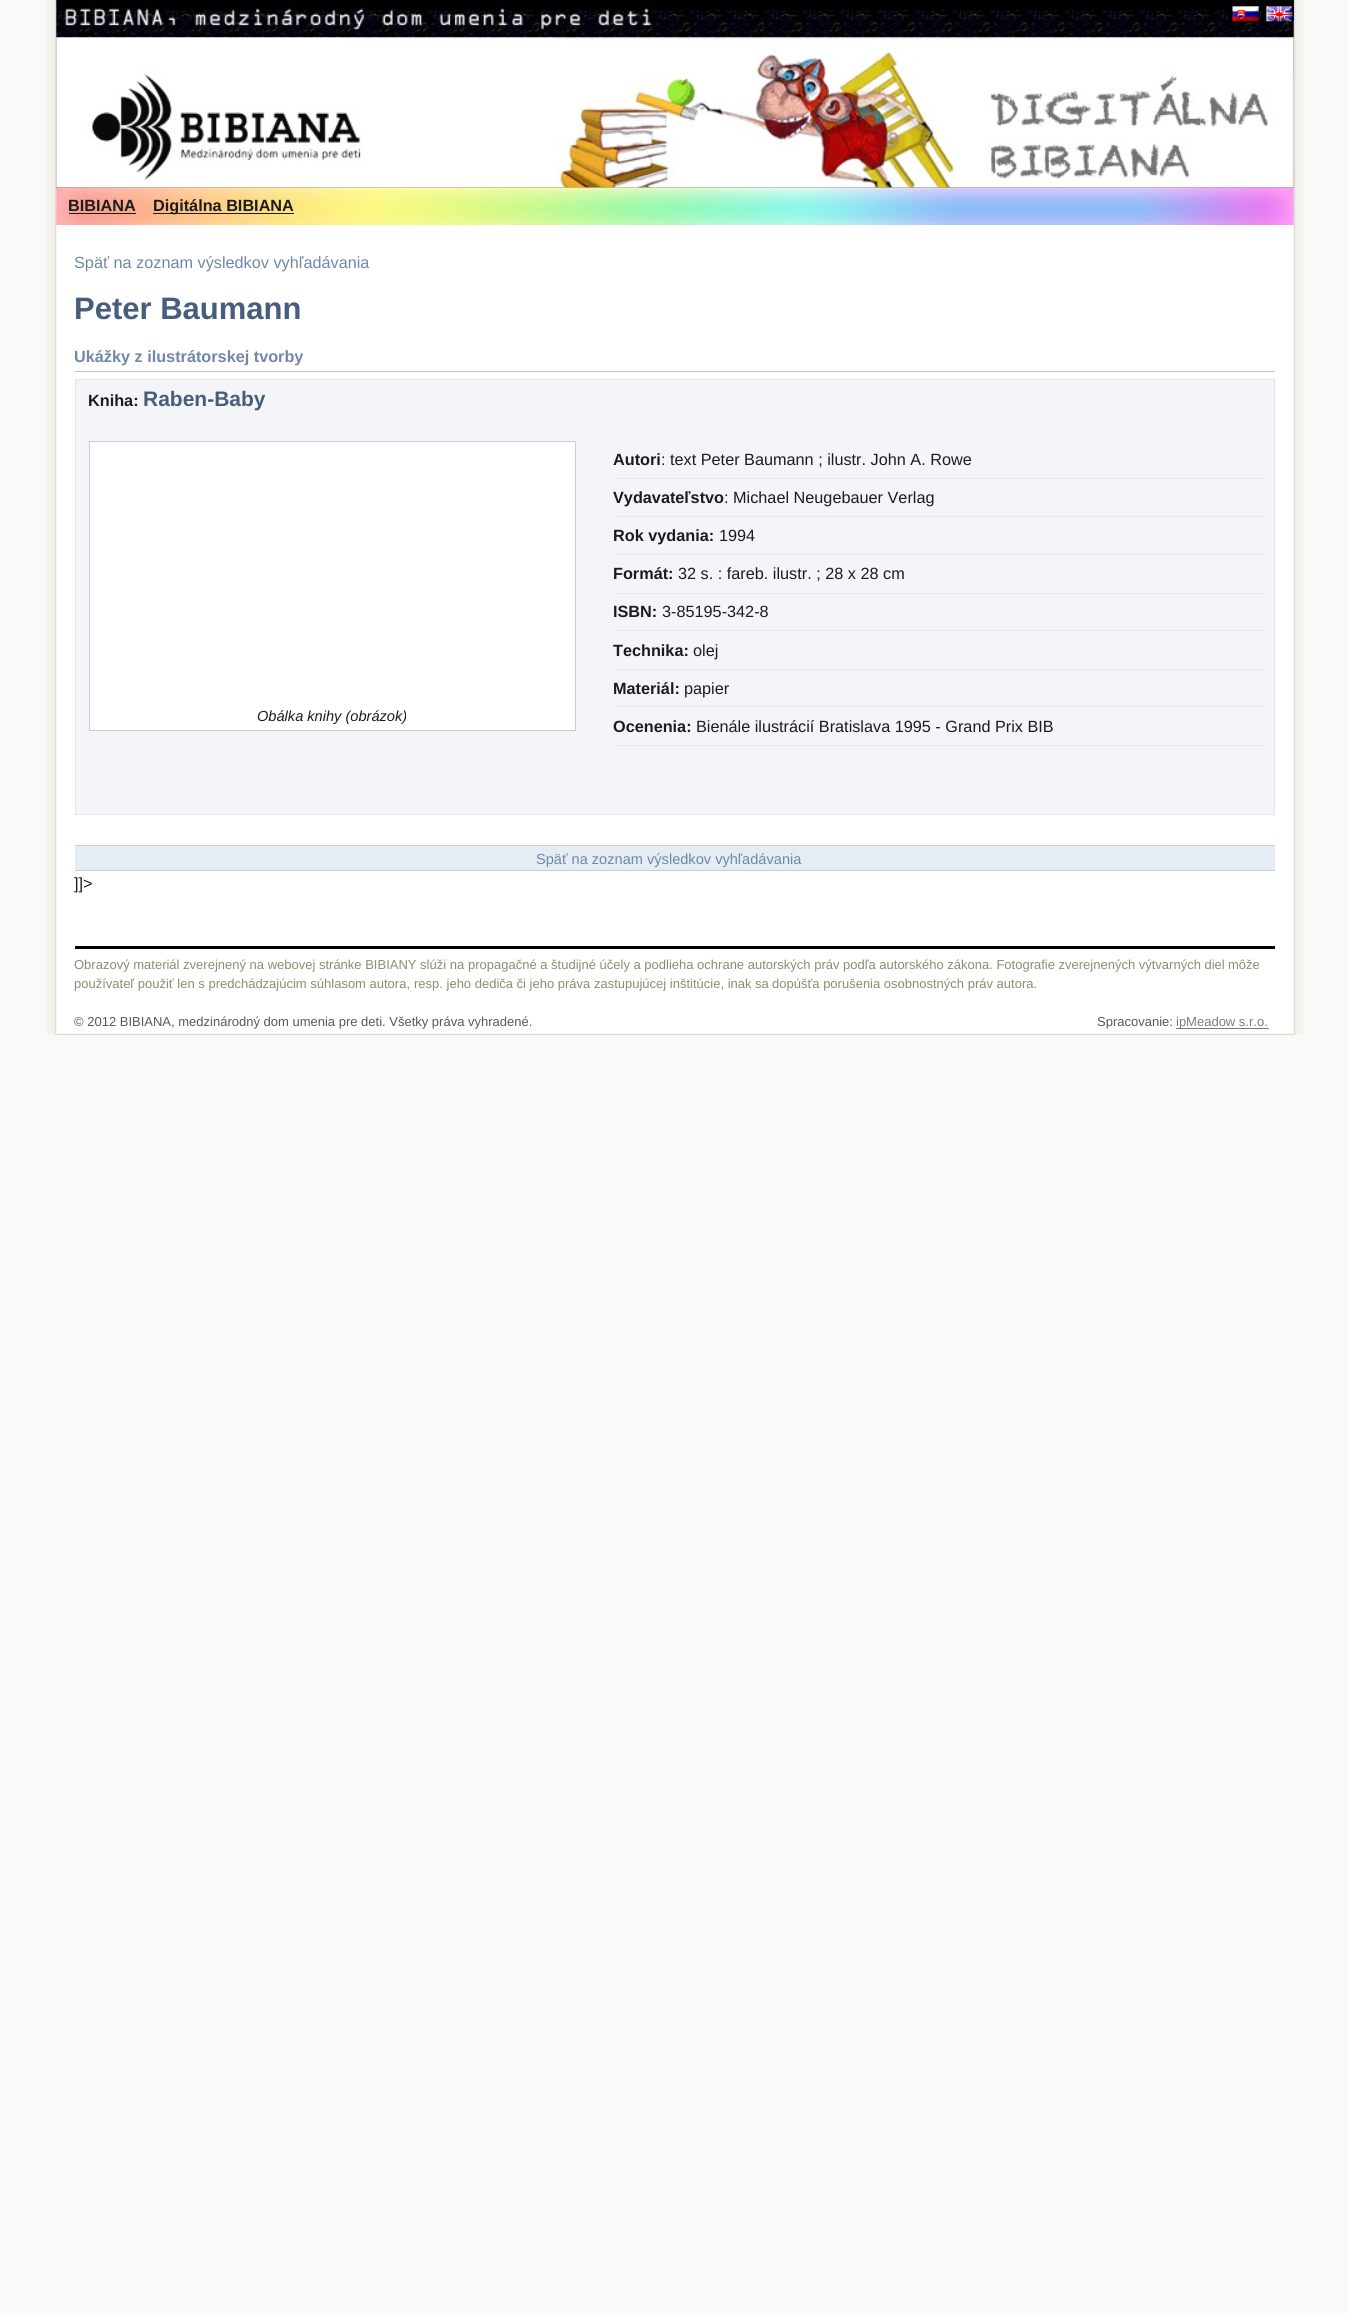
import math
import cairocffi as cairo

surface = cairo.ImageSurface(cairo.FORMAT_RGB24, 1348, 2313)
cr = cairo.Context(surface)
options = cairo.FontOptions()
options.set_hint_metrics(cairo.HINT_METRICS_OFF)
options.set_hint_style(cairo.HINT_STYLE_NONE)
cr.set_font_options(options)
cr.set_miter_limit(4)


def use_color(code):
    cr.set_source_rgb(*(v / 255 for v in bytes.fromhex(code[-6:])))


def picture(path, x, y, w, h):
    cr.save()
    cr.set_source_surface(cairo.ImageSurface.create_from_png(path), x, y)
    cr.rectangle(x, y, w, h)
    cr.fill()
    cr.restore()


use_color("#f9f9f7")
cr.paint()
picture("img1.png", 46, 0, 1258, 1035)
picture("img2.png", 56, 0, 1238, 38)
picture("img3.png", 1228, 0, 32, 22)
picture("img4.png", 1262, 0, 32, 22)
use_color("#46461f")
cr.rectangle(56, 38, 1238, 150)
cr.fill()
picture("img5.png", 56, 37, 1238, 151)
picture("img6.png", 56, 187, 1238, 38)
cr.select_font_face("Liberation Sans", cairo.FONT_SLANT_NORMAL, cairo.FONT_WEIGHT_BOLD)
cr.set_font_size(16.25)
use_color("#1c1c1c")
cr.move_to(68, 211)
cr.show_text("BIBIANA")
cr.rectangle(69, 213, 67, 1)
cr.fill()
cr.rectangle(153, 213, 141, 1)
cr.fill()
cr.move_to(153, 211)
cr.show_text("Digitálna BIBIANA")
cr.select_font_face("Liberation Sans")
use_color("#7087a9")
cr.move_to(74, 268)
cr.show_text("Späť na zoznam výsledkov vyhľadávania")
cr.select_font_face("Liberation Sans", cairo.FONT_SLANT_NORMAL, cairo.FONT_WEIGHT_BOLD)
cr.set_font_size(31)
use_color("#465d7c")
cr.move_to(74, 319)
cr.show_text("Peter Baumann")
use_color("#bbc8db")
cr.rectangle(75, 371, 1200, 1)
cr.fill()
cr.set_font_size(16.25)
use_color("#7087a9")
cr.move_to(74, 362)
cr.show_text("Ukážky z ilustrátorskej tvorby")
use_color("#f4f5f8")
cr.rectangle(75.5, 379.5, 1199, 435)
cr.fill_preserve()
use_color("#e1e5eb")
cr.set_line_width(1)
cr.stroke()
use_color("#1c1c1c")
cr.move_to(88, 406)
cr.show_text("Kniha:")
cr.set_font_size(21)
use_color("#465d7c")
cr.move_to(143, 406)
cr.show_text("Raben-Baby")
use_color("#ffffff")
cr.rectangle(89.5, 441.5, 486, 289)
cr.fill_preserve()
use_color("#cccccc")
cr.stroke()
cr.select_font_face("Liberation Sans", cairo.FONT_SLANT_ITALIC)
cr.set_font_size(14.6)
use_color("#1c1c1c")
cr.move_to(257, 721)
cr.show_text("Obálka knihy (obrázok)")
use_color("#eaeaea")
cr.rectangle(614, 478, 650, 1)
cr.fill()
cr.select_font_face("Liberation Sans", cairo.FONT_SLANT_NORMAL, cairo.FONT_WEIGHT_BOLD)
cr.set_font_size(16.25)
use_color("#1c1c1c")
cr.move_to(613, 465)
cr.show_text("Autori")
cr.select_font_face("Liberation Sans")
cr.move_to(661, 465)
cr.show_text(": text Peter Baumann ; ilustr. John A. Rowe")
use_color("#eaeaea")
cr.rectangle(614, 516, 650, 1)
cr.fill()
cr.select_font_face("Liberation Sans", cairo.FONT_SLANT_NORMAL, cairo.FONT_WEIGHT_BOLD)
use_color("#1c1c1c")
cr.move_to(613, 503)
cr.show_text("Vydavateľstvo")
cr.select_font_face("Liberation Sans")
cr.move_to(724, 503)
cr.show_text(": Michael Neugebauer Verlag")
use_color("#eaeaea")
cr.rectangle(614, 554, 650, 1)
cr.fill()
cr.select_font_face("Liberation Sans", cairo.FONT_SLANT_NORMAL, cairo.FONT_WEIGHT_BOLD)
use_color("#1c1c1c")
cr.move_to(613, 541)
cr.show_text("Rok vydania:")
cr.select_font_face("Liberation Sans")
cr.move_to(719, 541)
cr.show_text("1994")
use_color("#eaeaea")
cr.rectangle(614, 593, 650, 1)
cr.fill()
cr.select_font_face("Liberation Sans", cairo.FONT_SLANT_NORMAL, cairo.FONT_WEIGHT_BOLD)
use_color("#1c1c1c")
cr.move_to(613, 579)
cr.show_text("Formát:")
cr.select_font_face("Liberation Sans")
cr.move_to(678, 579)
cr.show_text("32 s. : fareb. ilustr. ; 28 x 28 cm")
use_color("#eaeaea")
cr.rectangle(614, 630, 650, 1)
cr.fill()
cr.select_font_face("Liberation Sans", cairo.FONT_SLANT_NORMAL, cairo.FONT_WEIGHT_BOLD)
use_color("#1c1c1c")
cr.move_to(613, 617)
cr.show_text("ISBN:")
cr.select_font_face("Liberation Sans")
cr.move_to(662, 617)
cr.show_text("3-85195-342-8")
use_color("#eaeaea")
cr.rectangle(614, 669, 650, 1)
cr.fill()
cr.select_font_face("Liberation Sans", cairo.FONT_SLANT_NORMAL, cairo.FONT_WEIGHT_BOLD)
use_color("#1c1c1c")
cr.move_to(613, 656)
cr.show_text("Technika:")
cr.select_font_face("Liberation Sans")
cr.move_to(693, 656)
cr.show_text("olej")
use_color("#eaeaea")
cr.rectangle(614, 706, 650, 1)
cr.fill()
cr.select_font_face("Liberation Sans", cairo.FONT_SLANT_NORMAL, cairo.FONT_WEIGHT_BOLD)
use_color("#1c1c1c")
cr.move_to(613, 694)
cr.show_text("Materiál:")
cr.select_font_face("Liberation Sans")
cr.move_to(684, 694)
cr.show_text("papier")
use_color("#eaeaea")
cr.rectangle(614, 745, 650, 1)
cr.fill()
cr.select_font_face("Liberation Sans", cairo.FONT_SLANT_NORMAL, cairo.FONT_WEIGHT_BOLD)
use_color("#1c1c1c")
cr.move_to(613, 732)
cr.show_text("Ocenenia:")
cr.select_font_face("Liberation Sans")
cr.move_to(696, 732)
cr.show_text("Bienále ilustrácií Bratislava 1995 - Grand Prix BIB")
use_color("#e5ecf3")
cr.rectangle(75, 846, 1200, 24)
cr.fill()
use_color("#bcd0e8")
cr.rectangle(75, 845, 1200, 1)
cr.fill()
cr.rectangle(75, 870, 1200, 1)
cr.fill()
cr.set_font_size(14.6)
use_color("#7087a9")
cr.move_to(536, 864)
cr.show_text("Späť na zoznam výsledkov vyhľadávania")
cr.set_font_size(16.25)
use_color("#1c1c1c")
cr.move_to(74, 889)
cr.show_text("]]>")
use_color("#000000")
cr.rectangle(75, 946, 1200, 3)
cr.fill()
cr.set_font_size(13)
use_color("#8c8c73")
cr.move_to(74, 969)
cr.show_text("Obrazový materiál zverejnený na webovej stránke BIBIANY slúži na")
cr.move_to(468, 969)
cr.show_text("propagačné a študijné účely a podlieha ochrane autorských práv")
cr.move_to(843, 969)
cr.show_text("podľa autorského zákona. Fotografie zverejnených výtvarných diel")
cr.move_to(1228, 969)
cr.show_text("môže")
cr.move_to(74, 988)
cr.show_text("používateľ použiť len s predchádzajúcim súhlasom autora,")
cr.move_to(414, 988)
cr.show_text("resp. jeho dediča či jeho práva zastupujúcej inštitúcie, inak sa")
cr.move_to(772, 988)
cr.show_text("dopúšťa porušenia osobnostných práv autora.")
use_color("#585858")
cr.move_to(74, 1026)
cr.show_text("© 2012 BIBIANA, medzinárodný dom umenia pre deti. Všetky práva vyhradené.")
cr.move_to(1097, 1026)
cr.show_text("Spracovanie:")
use_color("#7d7d71")
cr.rectangle(1176, 1028, 93, 1)
cr.fill()
cr.move_to(1176, 1026)
cr.show_text("ipMeadow s.r.o.")
picture("img7.png", 56, 1033, 1238, 2)
surface.write_to_png("result.png")
